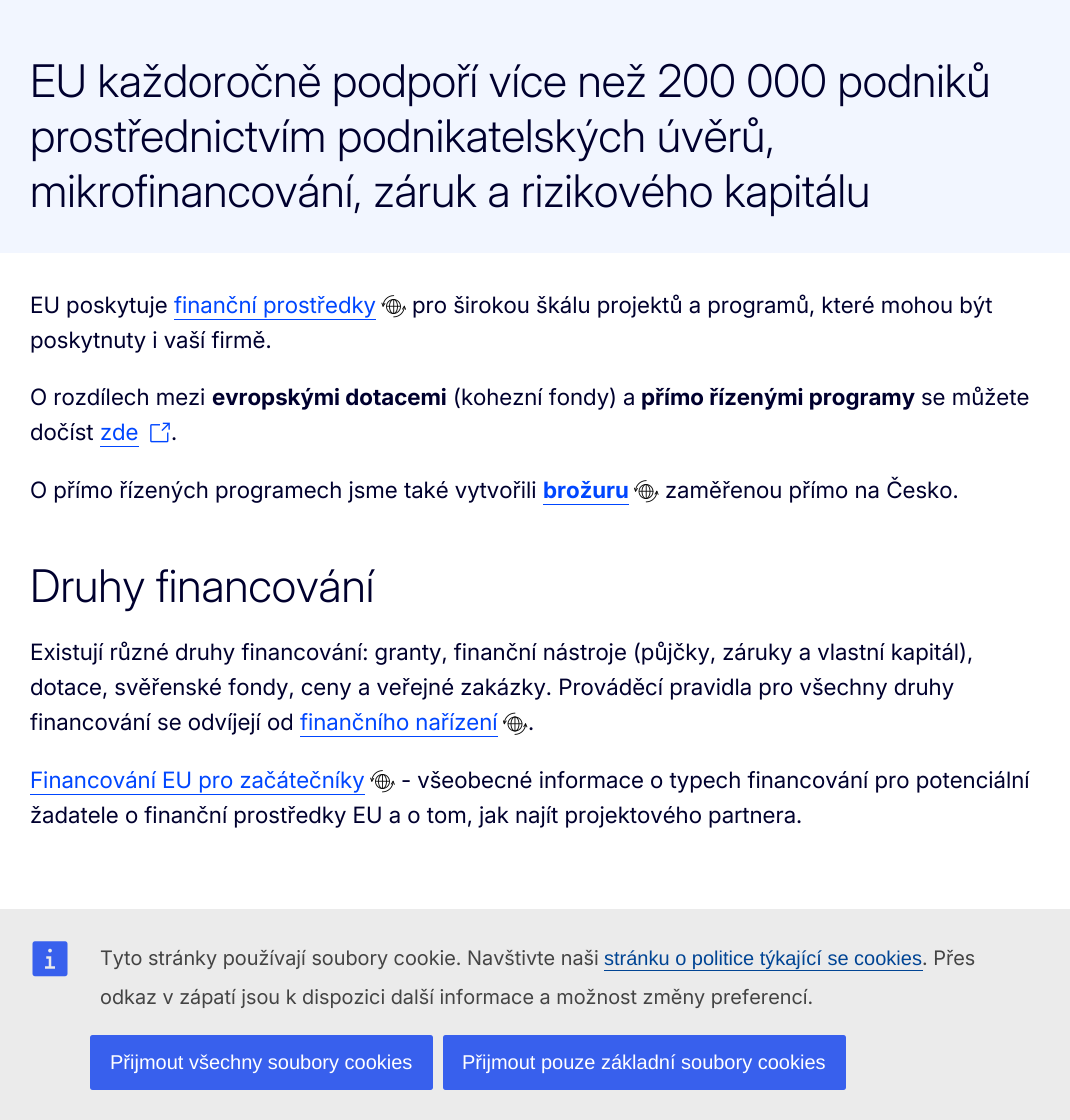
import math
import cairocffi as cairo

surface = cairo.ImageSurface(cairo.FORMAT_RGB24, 1070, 1120)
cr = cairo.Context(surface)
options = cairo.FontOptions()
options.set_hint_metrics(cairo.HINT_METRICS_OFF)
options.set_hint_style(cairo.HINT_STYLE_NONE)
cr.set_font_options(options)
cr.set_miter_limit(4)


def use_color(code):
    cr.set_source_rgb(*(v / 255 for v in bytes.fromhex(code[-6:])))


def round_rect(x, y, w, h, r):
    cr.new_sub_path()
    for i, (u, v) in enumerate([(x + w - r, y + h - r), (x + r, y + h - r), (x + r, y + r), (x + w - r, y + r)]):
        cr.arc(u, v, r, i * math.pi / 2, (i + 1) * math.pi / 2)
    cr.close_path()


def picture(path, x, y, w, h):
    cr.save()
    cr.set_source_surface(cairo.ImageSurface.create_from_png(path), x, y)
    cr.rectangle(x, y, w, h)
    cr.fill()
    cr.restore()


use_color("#ffffff")
cr.paint()
use_color("#f2f6ff")
cr.rectangle(0, 0, 1070, 253)
cr.fill()
cr.select_font_face("Inter Light")
cr.set_font_size(45)
use_color("#00002e")
cr.move_to(30, 97)
cr.show_text("EU každoročně podpoří více než 200 000 podniků")
cr.move_to(30, 152)
cr.show_text("prostřednictvím podnikatelských úvěrů,")
cr.move_to(30, 207)
cr.show_text("mikrofinancování, záruk a rizikového kapitálu")
cr.select_font_face("Inter")
cr.set_font_size(22.5)
cr.move_to(30, 313)
cr.show_text("EU poskytuje")
use_color("#0046ff")
cr.move_to(174, 313)
cr.show_text("finanční prostředky")
cr.rectangle(174, 319, 202, 1)
cr.fill()
picture("img1.png", 381, 295, 25, 23)
use_color("#00002e")
cr.move_to(412, 313)
cr.show_text("pro širokou škálu projektů a programů, které mohou být")
cr.move_to(30, 348)
cr.show_text("poskytnuty i vaší firmě.")
cr.move_to(30, 405)
cr.show_text("O rozdílech mezi")
cr.select_font_face("Inter", cairo.FONT_SLANT_NORMAL, cairo.FONT_WEIGHT_BOLD)
cr.move_to(212, 405)
cr.show_text("evropskými dotacemi")
cr.select_font_face("Inter")
cr.move_to(453, 405)
cr.show_text("(kohezní fondy) a")
cr.select_font_face("Inter", cairo.FONT_SLANT_NORMAL, cairo.FONT_WEIGHT_BOLD)
cr.move_to(641, 405)
cr.show_text("přímo řízenými programy")
cr.select_font_face("Inter")
cr.move_to(921, 405)
cr.show_text("se můžete")
cr.move_to(30, 440)
cr.show_text("dočíst")
use_color("#0046ff")
cr.move_to(100, 440)
cr.show_text("zde")
cr.rectangle(100, 446, 39, 1)
cr.fill()
picture("img2.png", 150, 422, 20, 21)
use_color("#00002e")
cr.move_to(171, 440)
cr.show_text(".")
cr.move_to(30, 498)
cr.show_text("O přímo řízených programech jsme také vytvořili")
cr.select_font_face("Inter", cairo.FONT_SLANT_NORMAL, cairo.FONT_WEIGHT_BOLD)
use_color("#0046ff")
cr.move_to(543, 498)
cr.show_text("brožuru")
cr.rectangle(543, 504, 86, 1)
cr.fill()
picture("img3.png", 634, 480, 25, 23)
cr.select_font_face("Inter")
use_color("#00002e")
cr.move_to(665, 498)
cr.show_text("zaměřenou přímo na Česko.")
cr.select_font_face("Inter Light")
cr.set_font_size(45)
cr.move_to(30, 602)
cr.show_text("Druhy financování")
cr.select_font_face("Inter")
cr.set_font_size(22.5)
cr.move_to(30, 660)
cr.show_text("Existují různé druhy financování: granty, finanční nástroje (půjčky, záruky a vlastní kapitál),")
cr.move_to(30, 695)
cr.show_text("dotace, svěřenské fondy, ceny a veřejné zakázky. Prováděcí pravidla pro všechny druhy")
cr.move_to(30, 730)
cr.show_text("financování se odvíjejí od")
use_color("#0046ff")
cr.move_to(300, 730)
cr.show_text("finančního nařízení")
cr.rectangle(300, 736, 198, 1)
cr.fill()
picture("img4.png", 503, 712, 25, 23)
use_color("#00002e")
cr.move_to(528, 730)
cr.show_text(".")
use_color("#0046ff")
cr.move_to(30, 788)
cr.show_text("Financování EU pro začátečníky")
cr.rectangle(30, 794, 335, 1)
cr.fill()
picture("img5.png", 370, 770, 25, 23)
use_color("#00002e")
cr.move_to(401, 788)
cr.show_text("- všeobecné informace o typech financování pro potenciální")
cr.move_to(30, 823)
cr.show_text("žadatele o finanční prostředky EU a o tom, jak najít projektového partnera.")
use_color("#ebebeb")
cr.rectangle(0, 909, 1070, 211)
cr.fill()
picture("img6.png", 32, 941, 36, 36)
cr.select_font_face("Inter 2")
cr.set_font_size(20)
use_color("#444444")
cr.move_to(100, 965)
cr.show_text("Tyto stránky používají soubory cookie. Navštivte naši")
cr.select_font_face("Liberation Sans")
use_color("#004494")
cr.move_to(604, 965)
cr.show_text("stránku o politice týkající se cookies")
cr.rectangle(604, 970, 319, 1)
cr.fill()
cr.select_font_face("Inter 2")
use_color("#444444")
cr.move_to(922, 965)
cr.show_text(". Přes")
cr.move_to(100, 1004)
cr.show_text("odkaz v zápatí jsou k dispozici další informace a možnost změny preferencí.")
use_color("#3860ed")
round_rect(90, 1035, 343, 55, 2.5)
cr.fill()
cr.select_font_face("Liberation Sans")
use_color("#ffffff")
cr.move_to(110, 1069)
cr.show_text("Přijmout všechny soubory cookies")
use_color("#3860ed")
round_rect(443, 1035, 403, 55, 2.5)
cr.fill()
use_color("#ffffff")
cr.move_to(462, 1069)
cr.show_text("Přijmout pouze základní soubory cookies")
surface.write_to_png("result.png")
